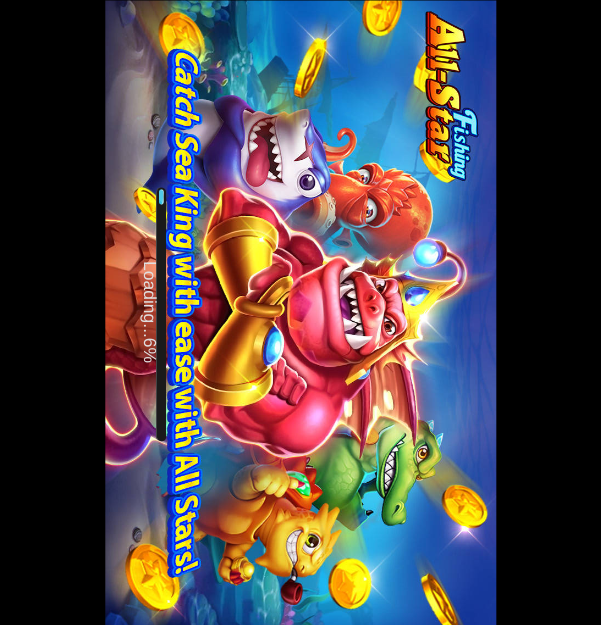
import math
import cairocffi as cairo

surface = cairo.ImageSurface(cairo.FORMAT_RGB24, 601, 625)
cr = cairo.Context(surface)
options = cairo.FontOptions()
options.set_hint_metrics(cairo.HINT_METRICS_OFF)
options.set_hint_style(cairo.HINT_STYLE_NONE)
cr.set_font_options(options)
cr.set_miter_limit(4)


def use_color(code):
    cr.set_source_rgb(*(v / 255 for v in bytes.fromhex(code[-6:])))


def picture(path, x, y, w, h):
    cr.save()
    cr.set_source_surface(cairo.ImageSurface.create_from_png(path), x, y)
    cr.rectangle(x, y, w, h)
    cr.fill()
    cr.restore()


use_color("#000000")
cr.paint()
picture("img1.png", 105, 0, 392, 625)
use_color("#444444")
cr.new_path()
cr.move_to(160, 441)
cr.curve_to(158, 441, 157, 439, 157, 437)
cr.line_to(157, 192)
cr.curve_to(157, 190, 159, 188, 161, 188)
cr.curve_to(159, 187, 158, 188, 157, 189)
cr.line_to(156, 192)
cr.line_to(156, 437)
cr.curve_to(156, 439, 158, 441, 160, 441)
cr.close_path()
cr.fill()
cr.select_font_face("Liberation Sans")
cr.set_font_size(17.5)
use_color("#dfdfdf")
cr.save()
cr.translate(144, 261)
cr.rotate(90 * math.pi / 180)
cr.move_to(0, 0)
cr.show_text("Loading...6%")
cr.restore()
use_color("#1a1a1a")
cr.new_path()
cr.move_to(166, 192)
cr.line_to(166, 438)
cr.curve_to(165, 443, 157, 442, 157, 437)
cr.line_to(157, 192)
cr.line_to(158, 189)
cr.curve_to(161, 186, 166, 188, 166, 192)
cr.close_path()
cr.fill()
use_color("#34c2e3")
cr.new_path()
cr.move_to(163.5, 192)
cr.line_to(163.5, 202)
cr.curve_to(163.5, 203.5, 162.5, 204.5, 161.5, 204.5)
cr.curve_to(160, 204.5, 159, 203.5, 159, 202)
cr.line_to(159, 192)
cr.curve_to(159, 190.5, 160, 189.5, 161.5, 189.5)
cr.curve_to(162.5, 189.5, 163.5, 190.5, 163.5, 192)
cr.close_path()
cr.fill()
picture("img2.png", 159, 189, 5, 15)
cr.set_source_rgba(1, 1, 1, 0.5)
cr.new_path()
cr.move_to(163, 192)
cr.curve_to(163, 195, 163.5, 203, 161, 204.5)
cr.curve_to(165, 205, 163.5, 199, 163.5, 197)
cr.curve_to(163.5, 195, 165, 190, 162, 189.5)
cr.line_to(160, 190)
cr.curve_to(161, 190, 162, 190.5, 163, 191)
cr.close_path()
cr.fill()
surface.write_to_png("result.png")
